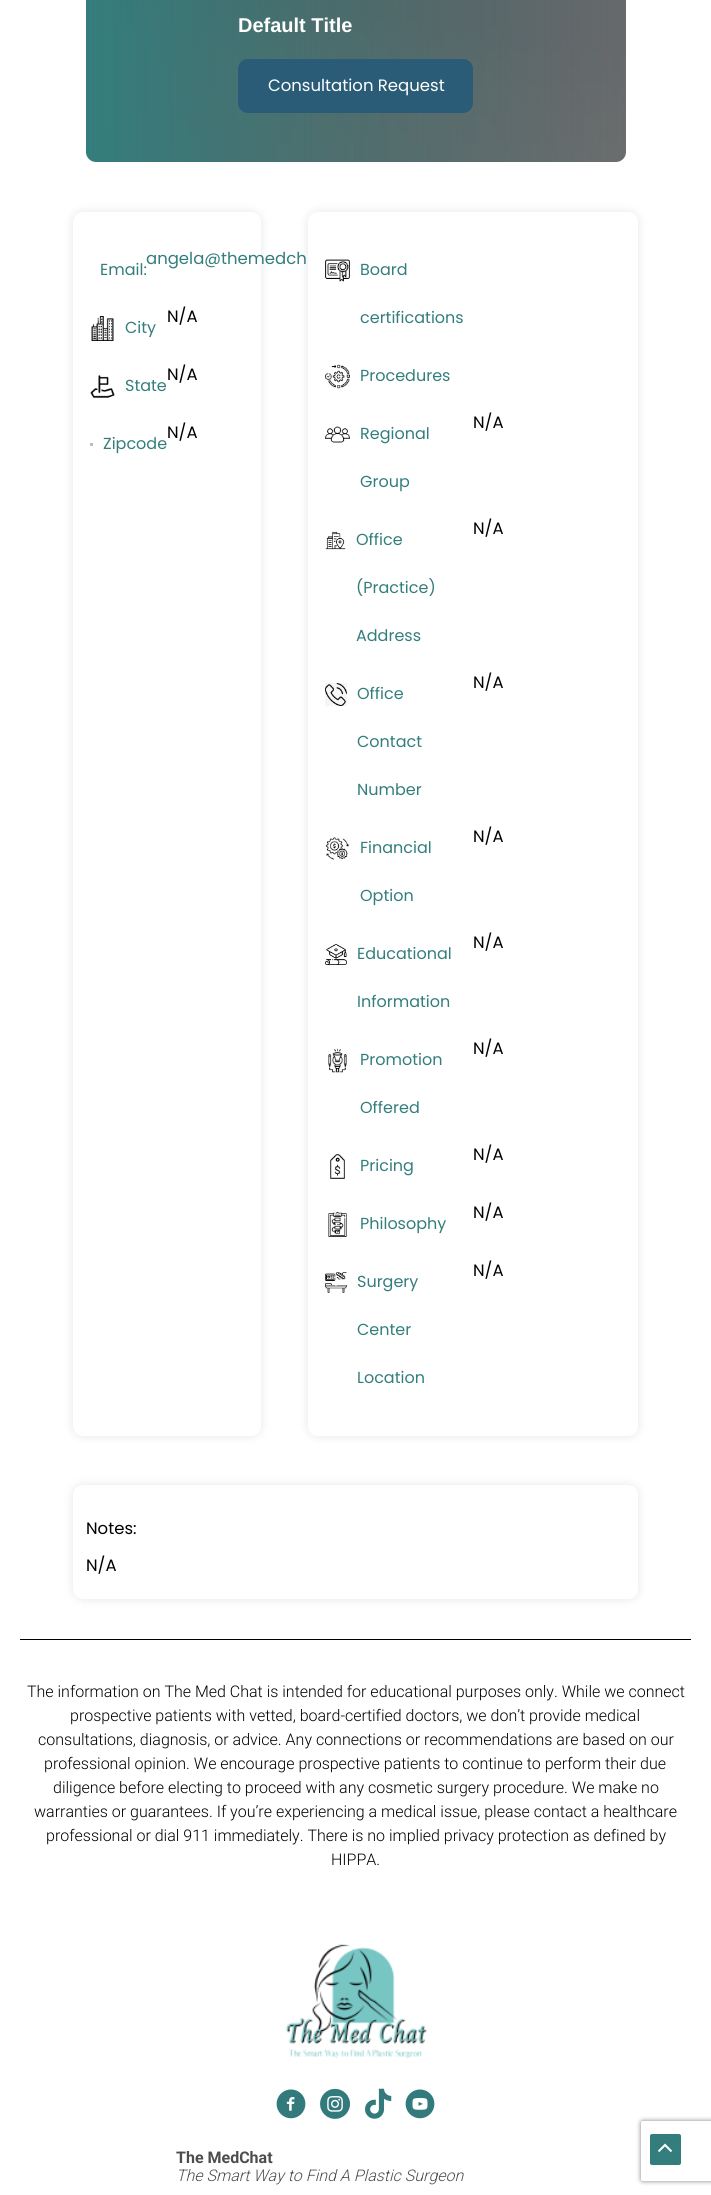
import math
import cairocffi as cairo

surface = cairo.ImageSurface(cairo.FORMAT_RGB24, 711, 2195)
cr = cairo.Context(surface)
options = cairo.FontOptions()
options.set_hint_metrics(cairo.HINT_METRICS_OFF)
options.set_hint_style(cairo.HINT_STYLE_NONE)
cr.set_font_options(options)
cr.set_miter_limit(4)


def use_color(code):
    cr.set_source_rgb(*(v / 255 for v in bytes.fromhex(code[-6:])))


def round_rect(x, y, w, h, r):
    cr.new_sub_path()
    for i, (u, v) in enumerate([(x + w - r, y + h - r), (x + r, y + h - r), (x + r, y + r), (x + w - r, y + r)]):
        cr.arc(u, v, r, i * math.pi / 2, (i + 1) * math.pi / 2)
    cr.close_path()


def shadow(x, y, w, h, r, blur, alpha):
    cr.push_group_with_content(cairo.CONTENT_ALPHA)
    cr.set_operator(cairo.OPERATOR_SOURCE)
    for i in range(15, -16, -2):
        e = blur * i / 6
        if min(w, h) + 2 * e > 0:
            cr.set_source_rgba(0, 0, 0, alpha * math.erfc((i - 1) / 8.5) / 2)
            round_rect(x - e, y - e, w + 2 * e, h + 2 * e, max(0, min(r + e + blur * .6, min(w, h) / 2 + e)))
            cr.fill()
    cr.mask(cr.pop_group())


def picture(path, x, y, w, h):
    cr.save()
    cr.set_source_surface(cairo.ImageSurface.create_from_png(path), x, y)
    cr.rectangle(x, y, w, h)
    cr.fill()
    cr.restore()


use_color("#ffffff")
cr.paint()
picture("img1.png", 86, 0, 540, 162)
gradient = cairo.LinearGradient(86, -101, 626, -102)
gradient.add_color_stop_rgba(0, 0.2, 0.494, 0.49, 1)
gradient.add_color_stop_rgba(1, 0.145, 0.125, 0.125, 0.62)
cr.set_source(gradient)
round_rect(86, -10, 540, 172, 10)
cr.fill()
cr.select_font_face("Liberation Sans", cairo.FONT_SLANT_NORMAL, cairo.FONT_WEIGHT_BOLD)
cr.set_font_size(20)
use_color("#ffffff")
cr.move_to(238, 32)
cr.show_text("Default Title")
use_color("#2a5c77")
round_rect(238, 59, 235, 54, 10)
cr.fill()
cr.select_font_face("Poppins")
cr.set_font_size(16.5)
use_color("#ffffff")
cr.move_to(268, 91)
cr.show_text("Consultation Request")
use_color("#000000")
shadow(73, 212, 188, 1224, 10, 5, 0.1)
use_color("#ffffff")
round_rect(73, 212, 188, 1224, 10)
cr.fill()
cr.set_font_size(16)
use_color("#337e7d")
cr.move_to(100, 275)
cr.show_text("Email:")
cr.set_font_size(16.5)
cr.move_to(146, 264)
cr.show_text("angela@themedch")
use_color("#000000")
cr.move_to(167, 322)
cr.show_text("N/A")
picture("img2.png", 91, 316, 23, 25)
cr.set_font_size(16)
use_color("#337e7d")
cr.move_to(125, 333)
cr.show_text("City")
cr.set_font_size(16.5)
use_color("#000000")
cr.move_to(167, 380)
cr.show_text("N/A")
picture("img3.png", 90, 375, 25, 23)
cr.set_font_size(16)
use_color("#337e7d")
cr.move_to(125, 391)
cr.show_text("State")
cr.set_font_size(16.5)
use_color("#000000")
cr.move_to(167, 438)
cr.show_text("N/A")
use_color("#bdbdbd")
cr.rectangle(90, 443, 3, 3)
cr.fill()
cr.set_font_size(16)
use_color("#337e7d")
cr.move_to(103, 449)
cr.show_text("Zipcode")
use_color("#000000")
shadow(308, 212, 330, 1224, 10, 5, 0.1)
use_color("#ffffff")
round_rect(308, 212, 330, 1224, 10)
cr.fill()
picture("img4.png", 325, 259, 25, 23)
use_color("#337e7d")
cr.move_to(360, 275)
cr.show_text("Board")
cr.move_to(360, 323)
cr.show_text("certifications")
picture("img5.png", 325, 364, 25, 25)
cr.move_to(360, 381)
cr.show_text("Procedures")
cr.set_font_size(16.5)
use_color("#000000")
cr.move_to(473, 428)
cr.show_text("N/A")
picture("img6.png", 325, 426, 25, 17)
cr.set_font_size(16)
use_color("#337e7d")
cr.move_to(360, 439)
cr.show_text("Regional")
cr.move_to(360, 487)
cr.show_text("Group")
cr.set_font_size(16.5)
use_color("#000000")
cr.move_to(473, 534)
cr.show_text("N/A")
picture("img7.png", 325, 531, 21, 19)
cr.set_font_size(16)
use_color("#337e7d")
cr.move_to(356, 545)
cr.show_text("Office")
cr.move_to(356, 593)
cr.show_text("(Practice)")
cr.move_to(356, 641)
cr.show_text("Address")
cr.set_font_size(16.5)
use_color("#000000")
cr.move_to(473, 688)
cr.show_text("N/A")
picture("img8.png", 325, 683, 22, 23)
cr.set_font_size(16)
use_color("#337e7d")
cr.move_to(357, 699)
cr.show_text("Office")
cr.move_to(357, 747)
cr.show_text("Contact")
cr.move_to(357, 795)
cr.show_text("Number")
cr.set_font_size(16.5)
use_color("#000000")
cr.move_to(473, 842)
cr.show_text("N/A")
picture("img9.png", 325, 837, 25, 23)
cr.set_font_size(16)
use_color("#337e7d")
cr.move_to(360, 853)
cr.show_text("Financial")
cr.move_to(360, 901)
cr.show_text("Option")
cr.set_font_size(16.5)
use_color("#000000")
cr.move_to(473, 948)
cr.show_text("N/A")
picture("img10.png", 325, 944, 22, 21)
cr.set_font_size(16)
use_color("#337e7d")
cr.move_to(357, 959)
cr.show_text("Educational")
cr.move_to(357, 1007)
cr.show_text("Information")
cr.set_font_size(16.5)
use_color("#000000")
cr.move_to(473, 1054)
cr.show_text("N/A")
picture("img11.png", 328, 1048, 19, 25)
cr.set_font_size(16)
use_color("#337e7d")
cr.move_to(360, 1065)
cr.show_text("Promotion")
cr.move_to(360, 1113)
cr.show_text("Offered")
cr.set_font_size(16.5)
use_color("#000000")
cr.move_to(473, 1160)
cr.show_text("N/A")
picture("img12.png", 330, 1154, 15, 25)
cr.set_font_size(16)
use_color("#337e7d")
cr.move_to(360, 1171)
cr.show_text("Pricing")
cr.set_font_size(16.5)
use_color("#000000")
cr.move_to(473, 1218)
cr.show_text("N/A")
picture("img13.png", 328, 1212, 19, 25)
cr.set_font_size(16)
use_color("#337e7d")
cr.move_to(360, 1229)
cr.show_text("Philosophy")
cr.set_font_size(16.5)
use_color("#000000")
cr.move_to(473, 1276)
cr.show_text("N/A")
picture("img14.png", 325, 1272, 22, 21)
cr.set_font_size(16)
use_color("#337e7d")
cr.move_to(357, 1287)
cr.show_text("Surgery")
cr.move_to(357, 1335)
cr.show_text("Center")
cr.move_to(357, 1383)
cr.show_text("Location")
use_color("#000000")
shadow(73, 1485, 565, 114, 10, 5, 0.1)
use_color("#ffffff")
round_rect(73, 1485, 565, 114, 10)
cr.fill()
cr.set_font_size(16.5)
use_color("#000000")
cr.move_to(86, 1534)
cr.show_text("Notes:")
cr.move_to(86, 1571)
cr.show_text("N/A")
cr.rectangle(20, 1639, 671, 1)
cr.fill()
cr.select_font_face("Roboto Light")
cr.set_font_size(16)
cr.move_to(27, 1697)
cr.show_text("The information on The Med Chat is intended for educational purposes only. While we connect")
cr.move_to(70, 1721)
cr.show_text("prospective patients with vetted, board-certified doctors, we don’t provide medical")
cr.move_to(38, 1745)
cr.show_text("consultations, diagnosis, or advice. Any connections or recommendations are based on our")
cr.move_to(44, 1769)
cr.show_text("professional opinion. We encourage prospective patients to continue to perform their due")
cr.move_to(53, 1793)
cr.show_text("diligence before electing to proceed with any cosmetic surgery procedure. We make no")
cr.move_to(34, 1817)
cr.show_text("warranties or guarantees. If you’re experiencing a medical issue, please contact a healthcare")
cr.move_to(46, 1841)
cr.show_text("professional or dial 911 immediately. There is no implied privacy protection as defined by")
cr.move_to(331, 1865)
cr.show_text("HIPPA.")
picture("img15.png", 285, 1944, 142, 115)
picture("img16.png", 276, 2089, 30, 30)
picture("img17.png", 320, 2088, 30, 31)
picture("img18.png", 365, 2088, 27, 31)
picture("img19.png", 405, 2089, 30, 30)
cr.select_font_face("Roboto", cairo.FONT_SLANT_NORMAL, cairo.FONT_WEIGHT_BOLD)
use_color("#4d4d4d")
cr.move_to(176, 2163)
cr.show_text("The MedChat")
cr.select_font_face("Roboto Light", cairo.FONT_SLANT_ITALIC)
cr.move_to(176, 2181)
cr.show_text("The Smart Way to Find A Plastic Surgeon")
cr.save()
cr.set_fill_rule(cairo.FILL_RULE_EVEN_ODD)
cr.new_path()
cr.move_to(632, 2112)
cr.line_to(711, 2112)
cr.line_to(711, 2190)
cr.line_to(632, 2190)
cr.close_path()
cr.move_to(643, 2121)
cr.line_to(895, 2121)
cr.curve_to(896, 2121, 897, 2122, 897, 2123)
cr.line_to(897, 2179)
cr.curve_to(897, 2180, 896, 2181, 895, 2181)
cr.line_to(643, 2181)
cr.curve_to(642, 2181, 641, 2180, 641, 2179)
cr.line_to(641, 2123)
cr.curve_to(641, 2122, 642, 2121, 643, 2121)
cr.close_path()
cr.clip()
use_color("#808080")
shadow(641, 2121, 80, 60, 2, 2.5, 1)
cr.restore()
use_color("#337e7d")
round_rect(650, 2134, 31, 31, 2)
cr.fill()
picture("img20.png", 658, 2143, 15, 10)
surface.write_to_png("result.png")
